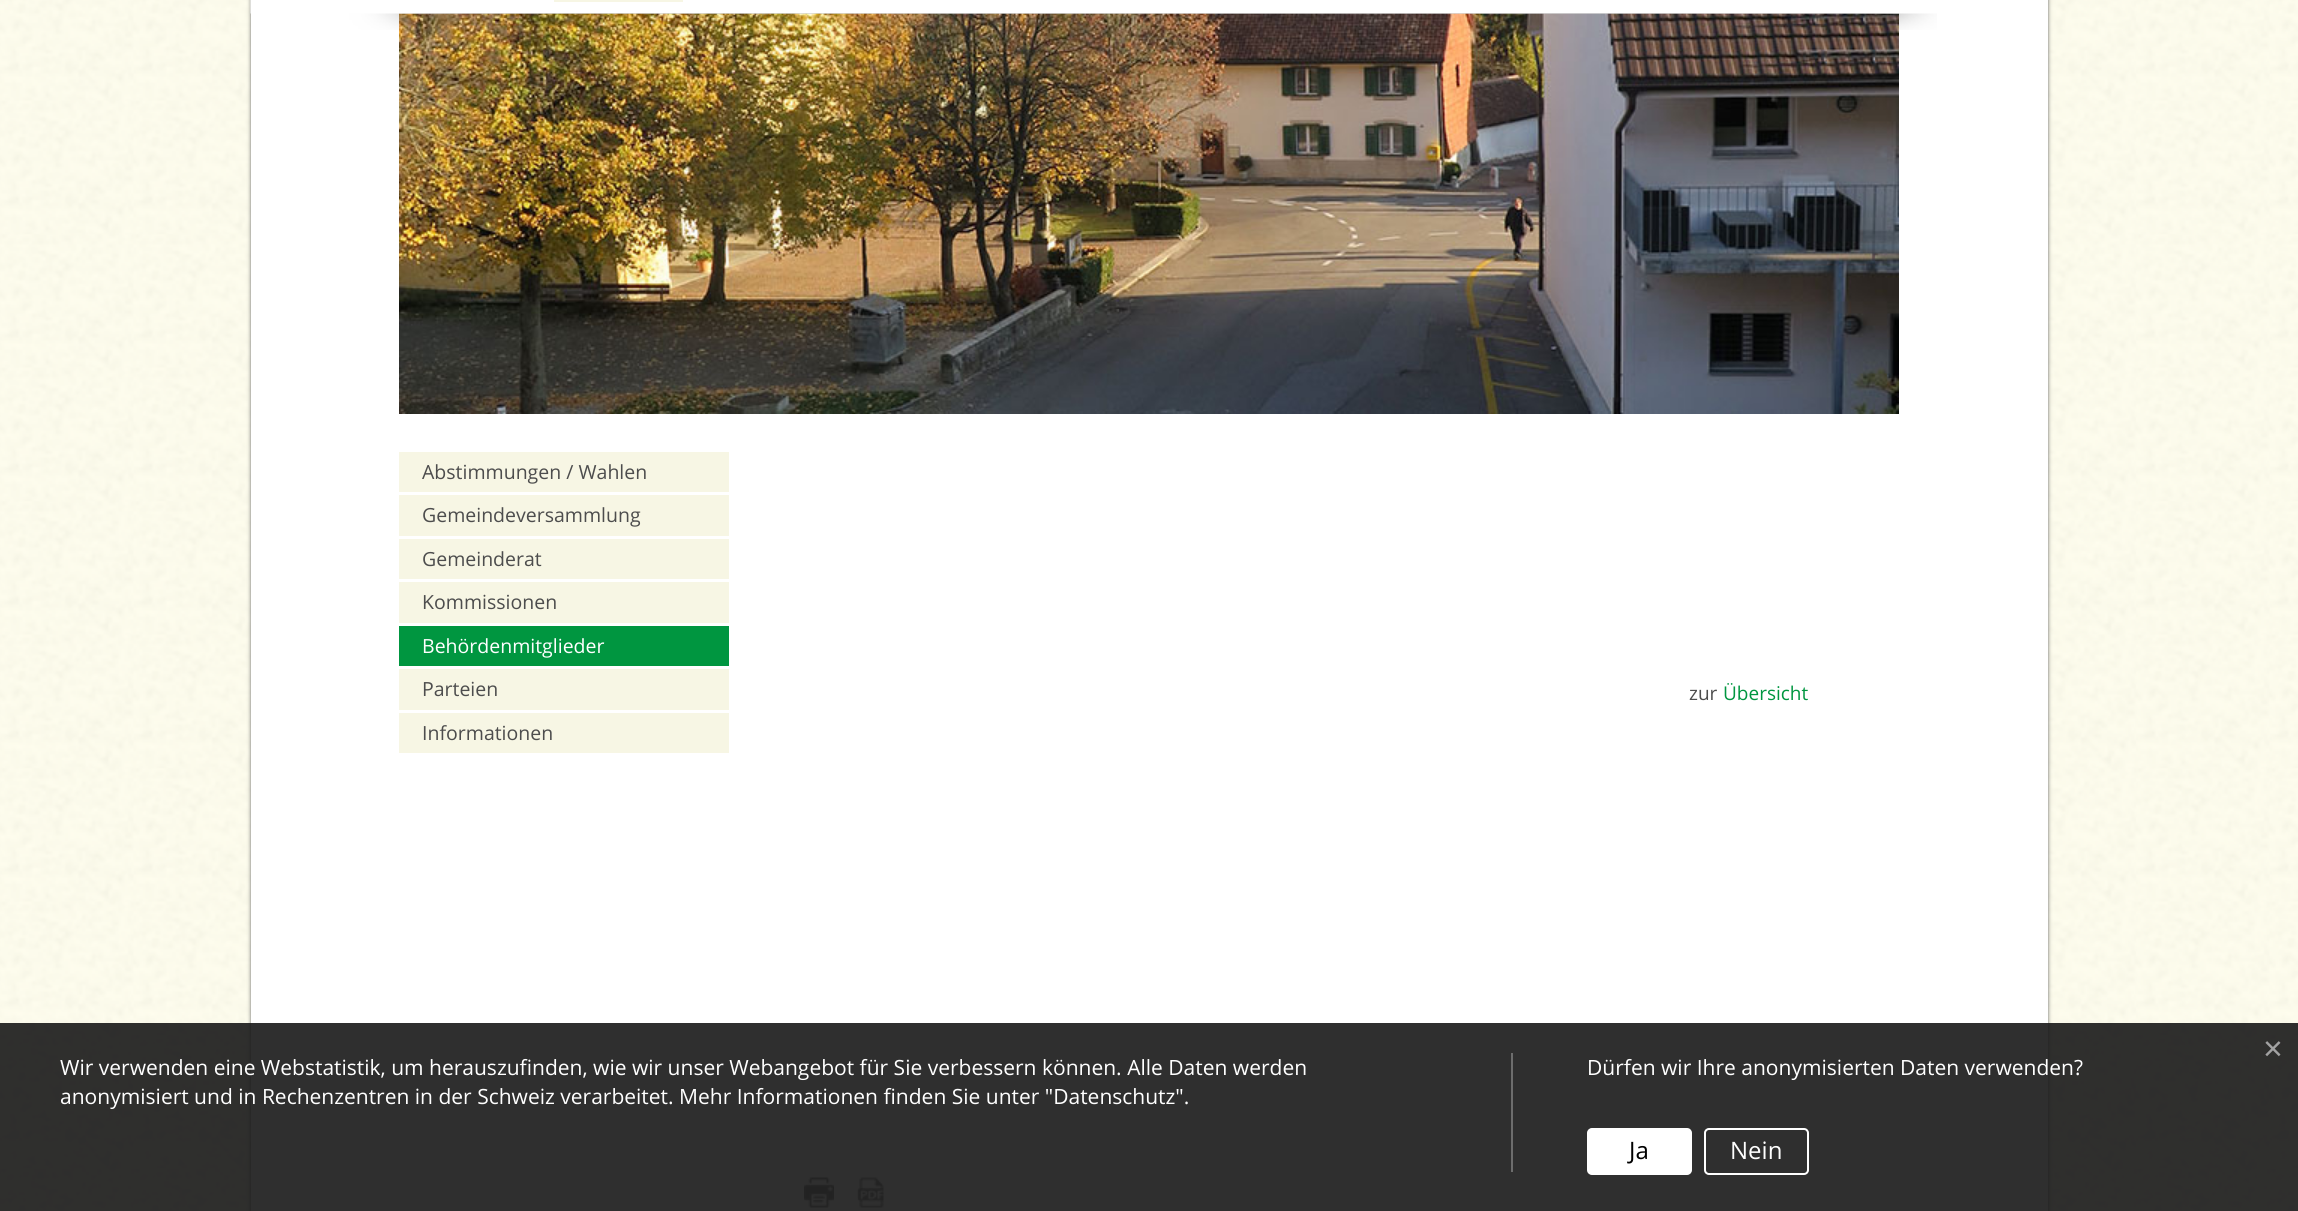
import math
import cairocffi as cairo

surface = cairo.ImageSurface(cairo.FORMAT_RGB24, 2298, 1211)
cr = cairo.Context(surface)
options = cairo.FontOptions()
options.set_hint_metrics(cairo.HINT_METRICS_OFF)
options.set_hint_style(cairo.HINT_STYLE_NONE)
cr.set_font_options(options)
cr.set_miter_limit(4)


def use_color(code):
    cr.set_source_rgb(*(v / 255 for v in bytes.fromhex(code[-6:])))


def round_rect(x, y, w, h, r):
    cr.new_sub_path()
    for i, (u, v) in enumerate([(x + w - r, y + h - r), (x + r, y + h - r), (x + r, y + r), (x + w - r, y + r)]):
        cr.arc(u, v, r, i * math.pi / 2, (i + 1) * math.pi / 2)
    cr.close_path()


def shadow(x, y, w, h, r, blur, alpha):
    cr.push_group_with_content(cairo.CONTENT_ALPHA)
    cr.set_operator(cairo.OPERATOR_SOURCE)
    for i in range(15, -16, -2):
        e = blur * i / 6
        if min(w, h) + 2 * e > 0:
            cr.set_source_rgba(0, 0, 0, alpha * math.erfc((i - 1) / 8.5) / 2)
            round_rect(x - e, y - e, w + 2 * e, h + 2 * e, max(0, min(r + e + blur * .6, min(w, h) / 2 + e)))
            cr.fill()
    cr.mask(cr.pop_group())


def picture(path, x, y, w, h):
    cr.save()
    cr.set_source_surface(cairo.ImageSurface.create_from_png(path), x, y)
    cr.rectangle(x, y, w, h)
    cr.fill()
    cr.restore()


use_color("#ffffff")
cr.paint()
picture("img1.png", 0, 0, 2298, 1211)
use_color("#666666")
shadow(251, -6, 1797, 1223, 0, 2, 1)
use_color("#ffffff")
cr.rectangle(251, 0, 1797, 1211)
cr.fill()
picture("img2.png", 250, 0, 1687, 30)
use_color("#f7f6e4")
cr.rectangle(554, 0, 129, 2)
cr.fill()
picture("img3.png", 399, 13, 1500, 401)
cr.rectangle(399, 452, 330, 40)
cr.fill()
cr.select_font_face("Open Sans")
cr.set_font_size(19.5)
use_color("#4d4d4d")
cr.move_to(422, 479)
cr.show_text("Abstimmungen / Wahlen")
use_color("#f7f6e4")
cr.rectangle(399, 495, 330, 41)
cr.fill()
use_color("#4d4d4d")
cr.move_to(422, 522)
cr.show_text("Gemeindeversammlung")
use_color("#f7f6e4")
cr.rectangle(399, 539, 330, 40)
cr.fill()
use_color("#4d4d4d")
cr.move_to(422, 566)
cr.show_text("Gemeinderat")
use_color("#f7f6e4")
cr.rectangle(399, 582, 330, 41)
cr.fill()
use_color("#4d4d4d")
cr.move_to(422, 609)
cr.show_text("Kommissionen")
use_color("#009640")
cr.rectangle(399, 626, 330, 40)
cr.fill()
use_color("#ffffff")
cr.move_to(422, 653)
cr.show_text("Behördenmitglieder")
use_color("#f7f6e4")
cr.rectangle(399, 669, 330, 41)
cr.fill()
use_color("#4d4d4d")
cr.move_to(422, 696)
cr.show_text("Parteien")
use_color("#f7f6e4")
cr.rectangle(399, 713, 330, 40)
cr.fill()
use_color("#4d4d4d")
cr.move_to(422, 740)
cr.show_text("Informationen")
cr.set_font_size(19)
cr.move_to(1689, 700)
cr.show_text("zur")
use_color("#009640")
cr.move_to(1723, 700)
cr.show_text("Übersicht")
picture("img4.png", 804, 1177, 30, 31)
picture("img5.png", 857, 1177, 27, 31)
cr.set_source_rgba(0.098, 0.098, 0.098, 0.9)
cr.rectangle(0, 1023, 2298, 188)
cr.fill()
cr.select_font_face("Liberation Sans")
cr.set_font_size(34)
use_color("#a2a2a2")
cr.move_to(2263, 1060)
cr.show_text("×")
use_color("#6d6d6d")
cr.rectangle(1511, 1053, 2, 119)
cr.fill()
cr.select_font_face("Open Sans")
cr.set_font_size(21)
use_color("#ffffff")
cr.move_to(60, 1075)
cr.show_text("Wir verwenden eine Webstatistik, um herauszufinden, wie wir unser Webangebot für Sie verbessern können. Alle Daten werden")
cr.move_to(60, 1104)
cr.show_text("anonymisiert und in Rechenzentren in der Schweiz verarbeitet. Mehr Informationen finden Sie unter \"Datenschutz\".")
cr.move_to(1587, 1075)
cr.show_text("Dürfen wir Ihre anonymisierten Daten verwenden?")
round_rect(1588, 1129, 103, 45, 4)
cr.fill_preserve()
cr.stroke()
cr.set_font_size(24)
use_color("#000000")
cr.move_to(1629, 1159)
cr.show_text("Ja")
round_rect(1705, 1129, 103, 45, 4)
use_color("#ffffff")
cr.stroke()
cr.move_to(1730, 1159)
cr.show_text("Nein")
surface.write_to_png("result.png")
